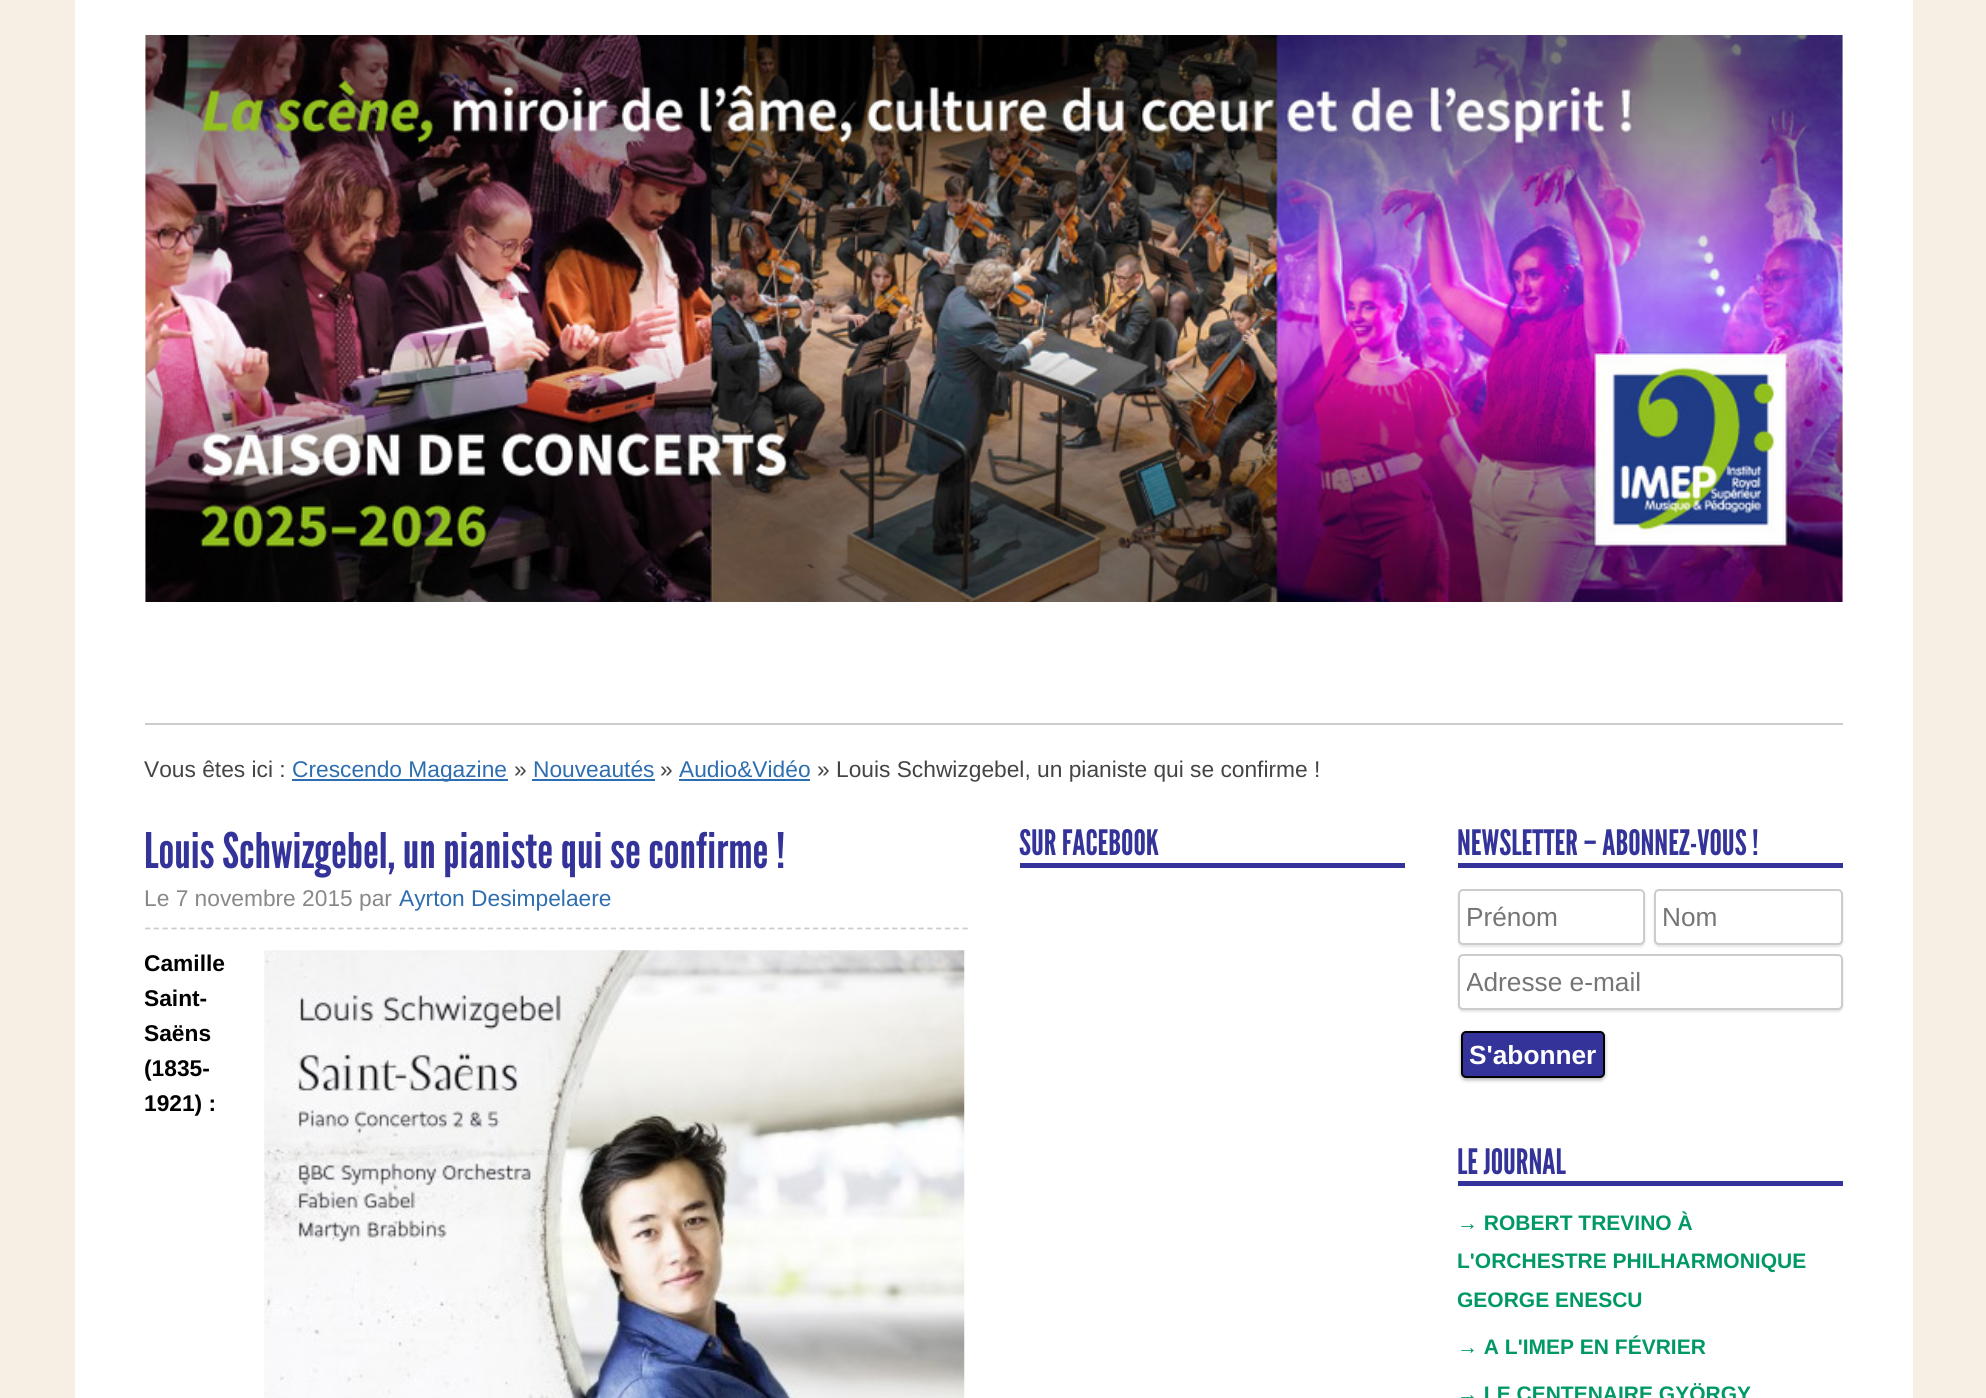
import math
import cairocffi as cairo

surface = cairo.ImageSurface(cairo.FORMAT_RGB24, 1986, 1398)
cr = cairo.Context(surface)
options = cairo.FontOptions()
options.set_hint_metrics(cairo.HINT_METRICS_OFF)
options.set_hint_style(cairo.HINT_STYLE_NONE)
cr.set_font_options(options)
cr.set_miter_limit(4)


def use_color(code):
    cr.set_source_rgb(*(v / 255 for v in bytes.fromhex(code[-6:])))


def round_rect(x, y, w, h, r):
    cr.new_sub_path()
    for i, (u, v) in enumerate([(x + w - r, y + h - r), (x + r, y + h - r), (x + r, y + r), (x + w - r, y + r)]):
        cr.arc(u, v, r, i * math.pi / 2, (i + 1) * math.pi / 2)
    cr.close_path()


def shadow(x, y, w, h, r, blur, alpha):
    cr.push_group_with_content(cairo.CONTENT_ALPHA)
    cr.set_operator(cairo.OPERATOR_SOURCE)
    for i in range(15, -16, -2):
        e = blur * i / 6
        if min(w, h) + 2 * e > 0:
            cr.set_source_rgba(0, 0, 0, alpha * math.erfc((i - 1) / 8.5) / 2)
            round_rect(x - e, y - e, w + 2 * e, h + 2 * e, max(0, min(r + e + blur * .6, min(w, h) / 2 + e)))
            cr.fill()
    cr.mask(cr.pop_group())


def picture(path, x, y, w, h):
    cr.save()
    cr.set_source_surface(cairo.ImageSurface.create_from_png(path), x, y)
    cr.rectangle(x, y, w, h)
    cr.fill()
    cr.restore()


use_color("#f7efe3")
cr.paint()
use_color("#ffffff")
cr.rectangle(75, 0, 1838, 1398)
cr.fill()
use_color("#cccccc")
cr.rectangle(145, 723, 1698, 2)
cr.fill()
picture("img1.png", 145, 35, 1698, 567)
cr.select_font_face("Liberation Sans")
cr.set_font_size(22.75)
use_color("#444444")
cr.move_to(144, 777)
cr.show_text("Vous êtes ici :")
use_color("#2e6eb0")
cr.rectangle(292, 779, 216, 2)
cr.fill()
cr.move_to(292, 777)
cr.show_text("Crescendo Magazine")
use_color("#444444")
cr.move_to(514, 777)
cr.show_text("»")
use_color("#2e6eb0")
cr.move_to(533, 777)
cr.show_text("Nouveautés")
cr.rectangle(532, 779, 123, 2)
cr.fill()
use_color("#444444")
cr.move_to(660, 777)
cr.show_text("»")
use_color("#2e6eb0")
cr.move_to(679, 777)
cr.show_text("Audio&Vidéo")
cr.rectangle(679, 779, 131, 2)
cr.fill()
use_color("#444444")
cr.move_to(817, 777)
cr.show_text("» Louis Schwizgebel, un pianiste qui se confirme !")
cr.new_path()
cr.move_to(145, 928.5)
cr.line_to(968, 928.5)
use_color("#cccccc")
cr.set_line_width(1.8)
cr.set_dash([5.25, 3.54])
cr.stroke()
cr.select_font_face("League Gothic")
cr.set_font_size(49)
use_color("#333399")
cr.move_to(144, 868)
cr.show_text("Louis Schwizgebel, un pianiste qui se confirme !")
cr.select_font_face("Liberation Sans")
cr.set_font_size(22.75)
use_color("#888888")
cr.move_to(144, 906)
cr.show_text("Le 7 novembre 2015 par")
use_color("#2e6eb0")
cr.move_to(399, 906)
cr.show_text("Ayrton Desimpelaere")
cr.select_font_face("Liberation Sans", cairo.FONT_SLANT_NORMAL, cairo.FONT_WEIGHT_BOLD)
use_color("#000000")
cr.move_to(144, 971)
cr.show_text("Camille")
cr.move_to(144, 1006)
cr.show_text("Saint-")
cr.move_to(144, 1041)
cr.show_text("Saëns")
cr.move_to(144, 1076)
cr.show_text("(1835-")
cr.move_to(144, 1111)
cr.show_text("1921) :")
picture("img2.png", 264, 950, 701, 448)
use_color("#333399")
cr.rectangle(1020, 863, 385, 5)
cr.fill()
cr.select_font_face("League Gothic")
cr.set_font_size(35)
cr.move_to(1019, 855)
cr.show_text("SUR FACEBOOK")
cr.rectangle(1458, 863, 385, 5)
cr.fill()
cr.move_to(1457, 855)
cr.show_text("NEWSLETTER – ABONNEZ-VOUS !")
use_color("#000000")
shadow(1458, 891, 187, 56, 5, 1, 0.1)
use_color("#ffffff")
round_rect(1459, 890, 185, 54, 4)
cr.fill_preserve()
use_color("#cccccc")
cr.set_line_width(2)
cr.set_dash([])
cr.stroke()
cr.select_font_face("Liberation Sans")
cr.set_font_size(26.25)
use_color("#757575")
cr.move_to(1466, 926)
cr.show_text("Prénom")
use_color("#000000")
shadow(1654, 891, 189, 56, 5, 1, 0.1)
use_color("#ffffff")
round_rect(1655, 890, 187, 54, 4)
cr.fill_preserve()
use_color("#cccccc")
cr.stroke()
use_color("#757575")
cr.move_to(1662, 926)
cr.show_text("Nom")
use_color("#000000")
shadow(1458, 956, 385, 56, 5, 1, 0.1)
use_color("#ffffff")
round_rect(1459, 955, 383, 54, 4)
cr.fill_preserve()
use_color("#cccccc")
cr.stroke()
cr.save()
cr.rectangle(1467, 966, 367, 30)
cr.clip()
use_color("#757575")
cr.move_to(1466, 991)
cr.show_text("Adresse e-mail")
cr.restore()
use_color("#000000")
shadow(1461, 1033, 144, 47, 5, 2, 0.3)
use_color("#333399")
round_rect(1462, 1032, 142, 45, 4)
cr.fill_preserve()
use_color("#000000")
cr.stroke()
cr.select_font_face("Liberation Sans", cairo.FONT_SLANT_NORMAL, cairo.FONT_WEIGHT_BOLD)
use_color("#ffffff")
cr.move_to(1469, 1064)
cr.show_text("S'abonner")
use_color("#333399")
cr.rectangle(1458, 1181, 385, 5)
cr.fill()
cr.select_font_face("League Gothic")
cr.set_font_size(35)
cr.move_to(1457, 1174)
cr.show_text("LE JOURNAL")
cr.select_font_face("Liberation Sans", cairo.FONT_SLANT_NORMAL, cairo.FONT_WEIGHT_BOLD)
cr.set_font_size(21)
use_color("#009966")
cr.move_to(1457, 1230)
cr.show_text("→ ROBERT TREVINO À")
cr.move_to(1457, 1268)
cr.show_text("L'ORCHESTRE PHILHARMONIQUE")
cr.move_to(1457, 1307)
cr.show_text("GEORGE ENESCU")
cr.move_to(1457, 1354)
cr.show_text("→ A L'IMEP EN FÉVRIER")
cr.move_to(1457, 1401)
cr.show_text("→ LE CENTENAIRE GYÖRGY")
surface.write_to_png("result.png")
